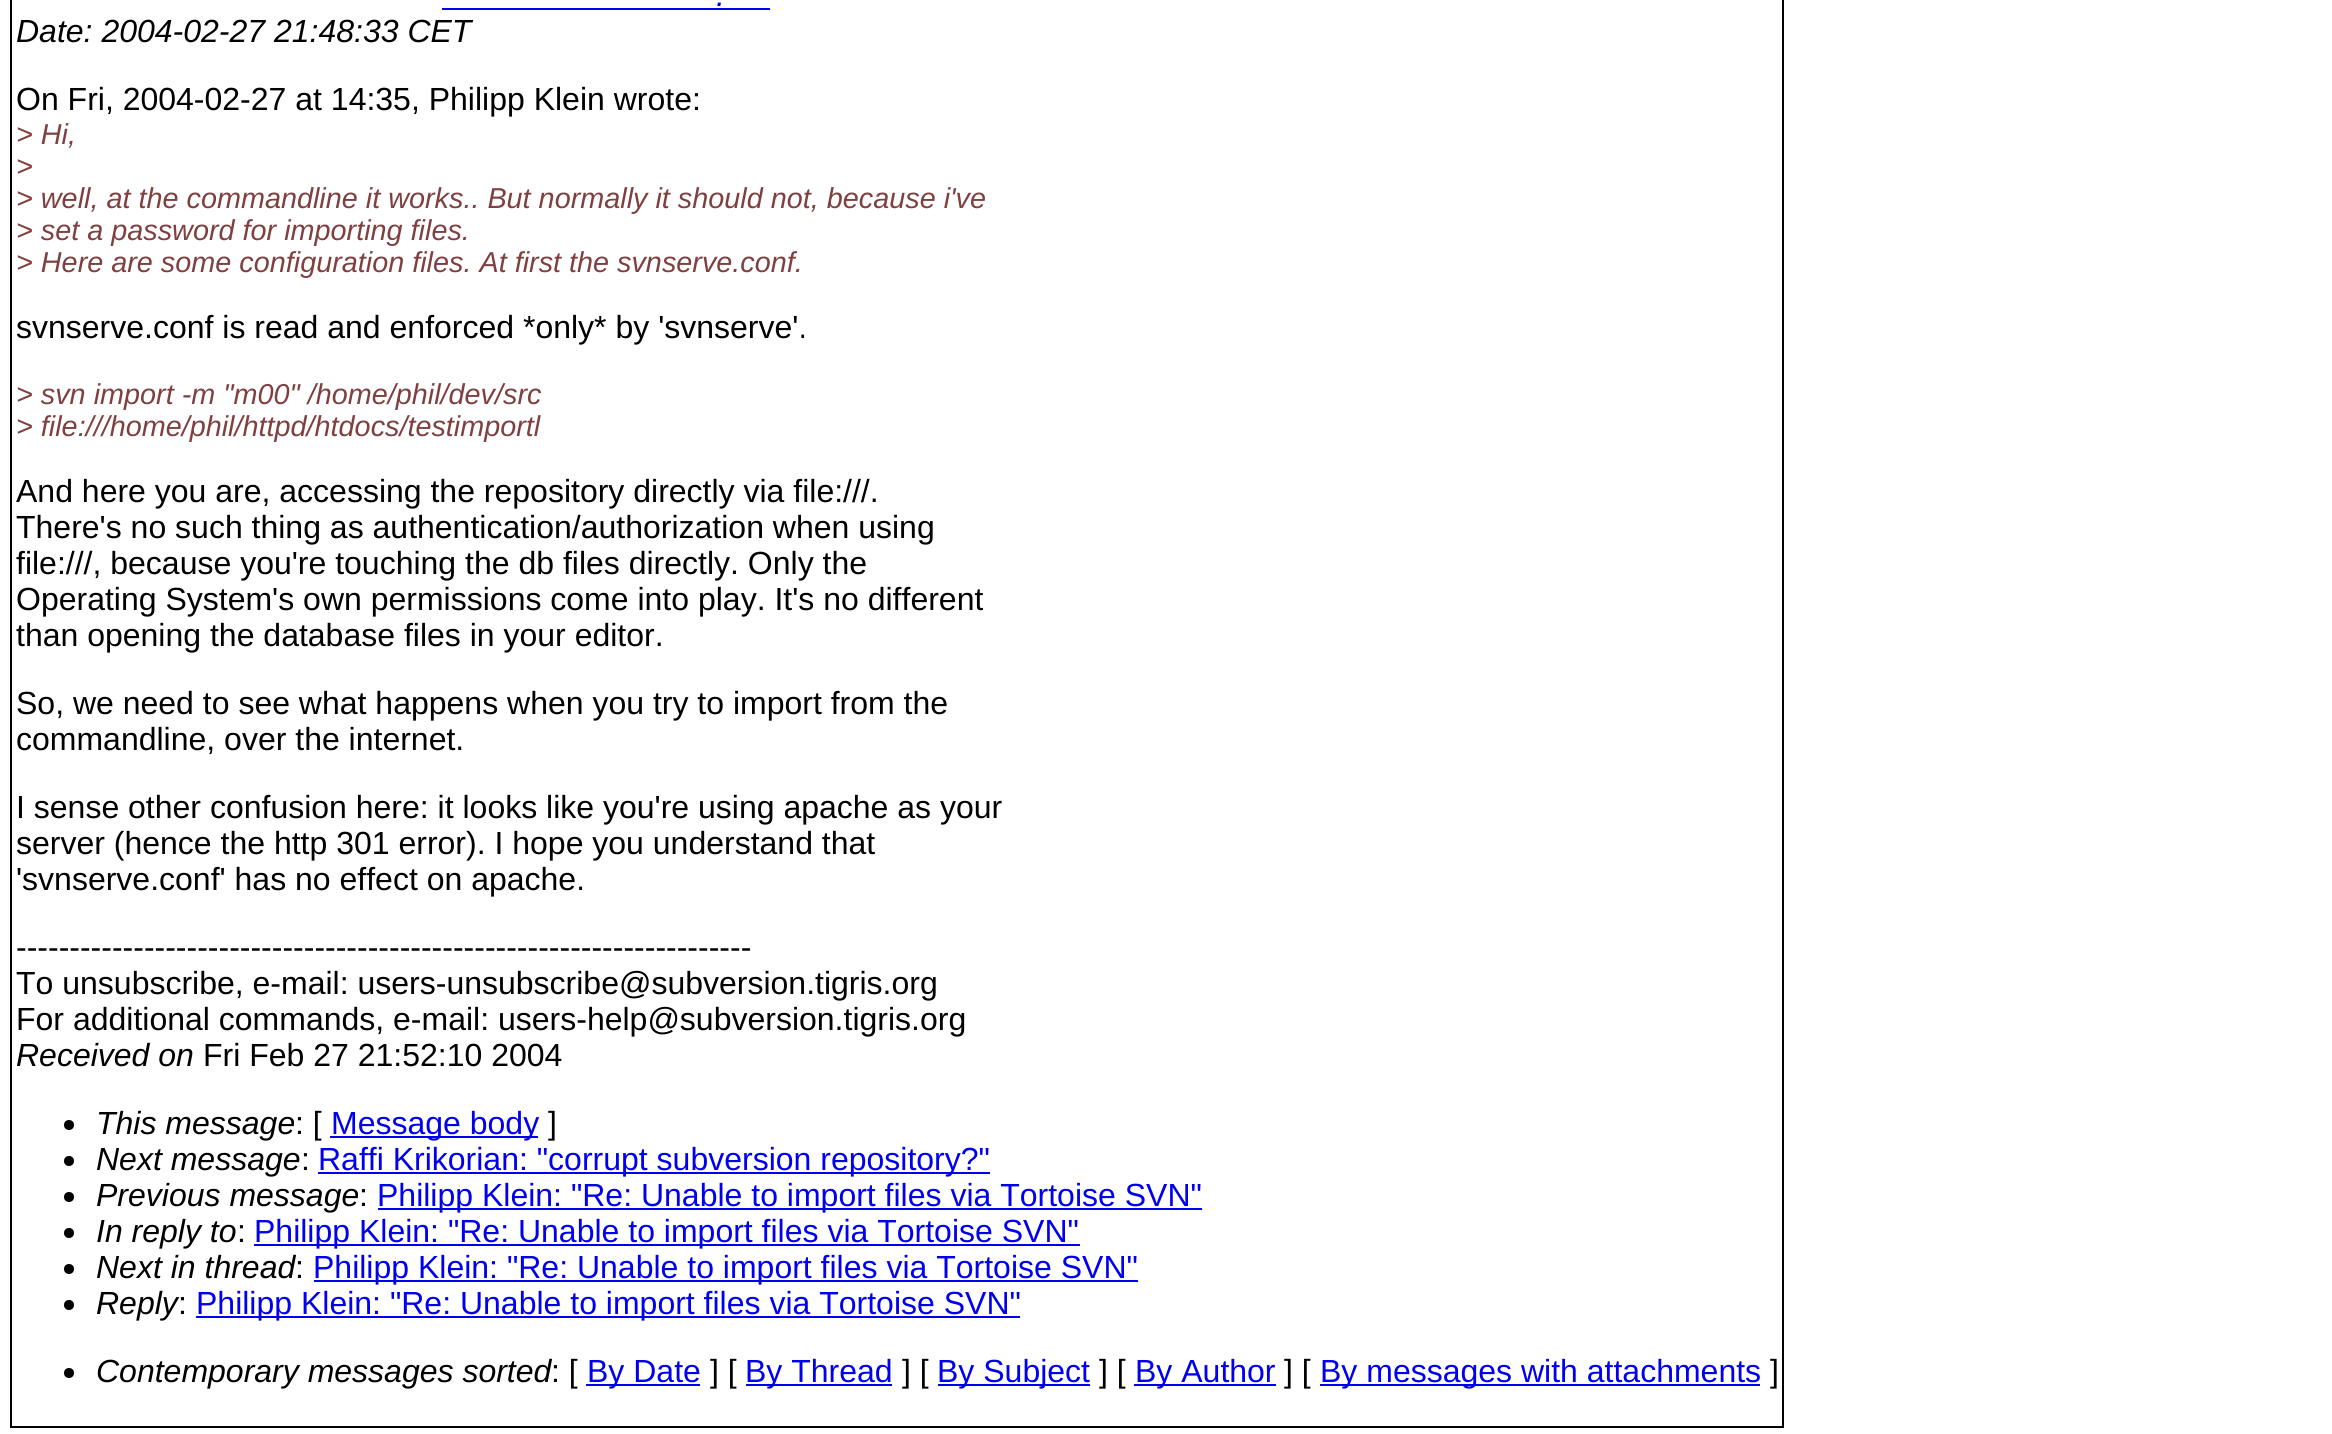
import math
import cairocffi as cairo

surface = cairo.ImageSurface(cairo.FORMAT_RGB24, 2332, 1434)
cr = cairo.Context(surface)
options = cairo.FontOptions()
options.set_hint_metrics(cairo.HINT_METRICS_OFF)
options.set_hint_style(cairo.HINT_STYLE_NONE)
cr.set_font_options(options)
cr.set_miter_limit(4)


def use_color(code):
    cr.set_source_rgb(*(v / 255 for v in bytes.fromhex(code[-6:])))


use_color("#ffffff")
cr.paint()
cr.rectangle(11, -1, 1772, 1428)
use_color("#000000")
cr.stroke()
cr.select_font_face("Liberation Sans", cairo.FONT_SLANT_ITALIC)
cr.set_font_size(32)
use_color("#0000ee")
cr.move_to(716, 6)
cr.show_text(".")
cr.rectangle(442, 8, 328, 2)
cr.fill()
use_color("#000000")
cr.move_to(16, 42)
cr.show_text("Date: 2004-02-27 21:48:33 CET")
cr.select_font_face("Liberation Sans")
cr.move_to(16, 110)
cr.show_text("On Fri, 2004-02-27 at 14:35, Philipp Klein wrote:")
cr.select_font_face("Liberation Sans", cairo.FONT_SLANT_ITALIC)
cr.set_font_size(28.8)
use_color("#804040")
cr.move_to(16, 144)
cr.show_text("> Hi,")
cr.move_to(16, 176)
cr.show_text(">")
cr.move_to(16, 208)
cr.show_text("> well, at the commandline it works.. But normally it should not, because i've")
cr.move_to(16, 240)
cr.show_text("> set a password for importing files.")
cr.move_to(16, 272)
cr.show_text("> Here are some configuration files. At first the svnserve.conf.")
cr.select_font_face("Liberation Sans")
cr.set_font_size(32)
use_color("#000000")
cr.move_to(16, 338)
cr.show_text("svnserve.conf is read and enforced *only* by 'svnserve'.")
cr.select_font_face("Liberation Sans", cairo.FONT_SLANT_ITALIC)
cr.set_font_size(28.8)
use_color("#804040")
cr.move_to(16, 404)
cr.show_text("> svn import -m \"m00\" /home/phil/dev/src")
cr.move_to(16, 436)
cr.show_text("> file:///home/phil/httpd/htdocs/testimportl")
cr.select_font_face("Liberation Sans")
cr.set_font_size(32)
use_color("#000000")
cr.move_to(16, 502)
cr.show_text("And here you are, accessing the repository directly via file:///.")
cr.move_to(16, 538)
cr.show_text("There's no such thing as authentication/authorization when using")
cr.move_to(16, 574)
cr.show_text("file:///, because you're touching the db files directly. Only the")
cr.move_to(16, 610)
cr.show_text("Operating System's own permissions come into play. It's no different")
cr.move_to(16, 646)
cr.show_text("than opening the database files in your editor.")
cr.move_to(16, 714)
cr.show_text("So, we need to see what happens when you try to import from the")
cr.move_to(16, 750)
cr.show_text("commandline, over the internet.")
cr.move_to(16, 818)
cr.show_text("I sense other confusion here: it looks like you're using apache as your")
cr.move_to(16, 854)
cr.show_text("server (hence the http 301 error). I hope you understand that")
cr.move_to(16, 890)
cr.show_text("'svnserve.conf' has no effect on apache.")
cr.move_to(16, 958)
cr.show_text("---------------------------------------------------------------------")
cr.move_to(16, 994)
cr.show_text("To unsubscribe, e-mail: users-unsubscribe@subversion.tigris.org")
cr.move_to(16, 1030)
cr.show_text("For additional commands, e-mail: users-help@subversion.tigris.org")
cr.select_font_face("Liberation Sans", cairo.FONT_SLANT_ITALIC)
cr.move_to(16, 1066)
cr.show_text("Received on")
cr.select_font_face("Liberation Sans")
cr.move_to(203, 1066)
cr.show_text("Fri Feb 27 21:52:10 2004")
cr.new_path()
cr.arc(69, 1125, 5, 0, 2 * math.pi)
cr.fill()
cr.select_font_face("Liberation Sans", cairo.FONT_SLANT_ITALIC)
cr.move_to(96, 1134)
cr.show_text("This message")
cr.select_font_face("Liberation Sans")
cr.move_to(295, 1134)
cr.show_text(": [")
use_color("#0000ee")
cr.rectangle(330, 1136, 208, 2)
cr.fill()
cr.move_to(331, 1134)
cr.show_text("Message body")
use_color("#000000")
cr.move_to(548, 1134)
cr.show_text("]")
cr.new_path()
cr.arc(69, 1161, 5, 0, 2 * math.pi)
cr.fill()
cr.select_font_face("Liberation Sans", cairo.FONT_SLANT_ITALIC)
cr.move_to(96, 1170)
cr.show_text("Next message")
cr.select_font_face("Liberation Sans")
cr.move_to(301, 1170)
cr.show_text(":")
use_color("#0000ee")
cr.rectangle(318, 1172, 672, 2)
cr.fill()
cr.move_to(318, 1170)
cr.show_text("Raffi Krikorian: \"corrupt subversion repository?\"")
use_color("#000000")
cr.new_path()
cr.arc(69, 1197, 5, 0, 2 * math.pi)
cr.fill()
cr.select_font_face("Liberation Sans", cairo.FONT_SLANT_ITALIC)
cr.move_to(96, 1206)
cr.show_text("Previous message")
cr.select_font_face("Liberation Sans")
cr.move_to(359, 1206)
cr.show_text(":")
use_color("#0000ee")
cr.rectangle(378, 1208, 824, 2)
cr.fill()
cr.move_to(377, 1206)
cr.show_text("Philipp Klein: \"Re: Unable to import files via Tortoise SVN\"")
use_color("#000000")
cr.new_path()
cr.arc(69, 1233, 5, 0, 2 * math.pi)
cr.fill()
cr.select_font_face("Liberation Sans", cairo.FONT_SLANT_ITALIC)
cr.move_to(96, 1242)
cr.show_text("In reply to")
cr.select_font_face("Liberation Sans")
cr.move_to(237, 1242)
cr.show_text(":")
use_color("#0000ee")
cr.rectangle(254, 1244, 826, 2)
cr.fill()
cr.move_to(254, 1242)
cr.show_text("Philipp Klein: \"Re: Unable to import files via Tortoise SVN\"")
use_color("#000000")
cr.new_path()
cr.arc(69, 1269, 5, 0, 2 * math.pi)
cr.fill()
cr.select_font_face("Liberation Sans", cairo.FONT_SLANT_ITALIC)
cr.move_to(96, 1278)
cr.show_text("Next in thread")
cr.select_font_face("Liberation Sans")
cr.move_to(295, 1278)
cr.show_text(":")
use_color("#0000ee")
cr.rectangle(314, 1280, 824, 2)
cr.fill()
cr.move_to(313, 1278)
cr.show_text("Philipp Klein: \"Re: Unable to import files via Tortoise SVN\"")
use_color("#000000")
cr.new_path()
cr.arc(69, 1305, 5, 0, 2 * math.pi)
cr.fill()
cr.select_font_face("Liberation Sans", cairo.FONT_SLANT_ITALIC)
cr.move_to(96, 1314)
cr.show_text("Reply")
cr.select_font_face("Liberation Sans")
cr.move_to(178, 1314)
cr.show_text(":")
use_color("#0000ee")
cr.rectangle(196, 1316, 824, 2)
cr.fill()
cr.move_to(196, 1314)
cr.show_text("Philipp Klein: \"Re: Unable to import files via Tortoise SVN\"")
use_color("#000000")
cr.new_path()
cr.arc(69, 1373, 5, 0, 2 * math.pi)
cr.fill()
cr.select_font_face("Liberation Sans", cairo.FONT_SLANT_ITALIC)
cr.move_to(96, 1382)
cr.show_text("Contemporary messages sorted")
cr.select_font_face("Liberation Sans")
cr.move_to(551, 1382)
cr.show_text(": [")
use_color("#0000ee")
cr.rectangle(586, 1384, 114, 2)
cr.fill()
cr.move_to(587, 1382)
cr.show_text("By Date")
use_color("#000000")
cr.move_to(710, 1382)
cr.show_text("] [")
use_color("#0000ee")
cr.rectangle(746, 1384, 146, 2)
cr.fill()
cr.move_to(745, 1382)
cr.show_text("By Thread")
use_color("#000000")
cr.move_to(902, 1382)
cr.show_text("] [")
use_color("#0000ee")
cr.rectangle(938, 1384, 152, 2)
cr.fill()
cr.move_to(937, 1382)
cr.show_text("By Subject")
use_color("#000000")
cr.move_to(1099, 1382)
cr.show_text("] [")
use_color("#0000ee")
cr.rectangle(1134, 1384, 142, 2)
cr.fill()
cr.move_to(1135, 1382)
cr.show_text("By Author")
use_color("#000000")
cr.move_to(1284, 1382)
cr.show_text("] [")
use_color("#0000ee")
cr.rectangle(1320, 1384, 440, 2)
cr.fill()
cr.move_to(1320, 1382)
cr.show_text("By messages with attachments")
use_color("#000000")
cr.move_to(1770, 1382)
cr.show_text("]")
surface.write_to_png("result.png")
